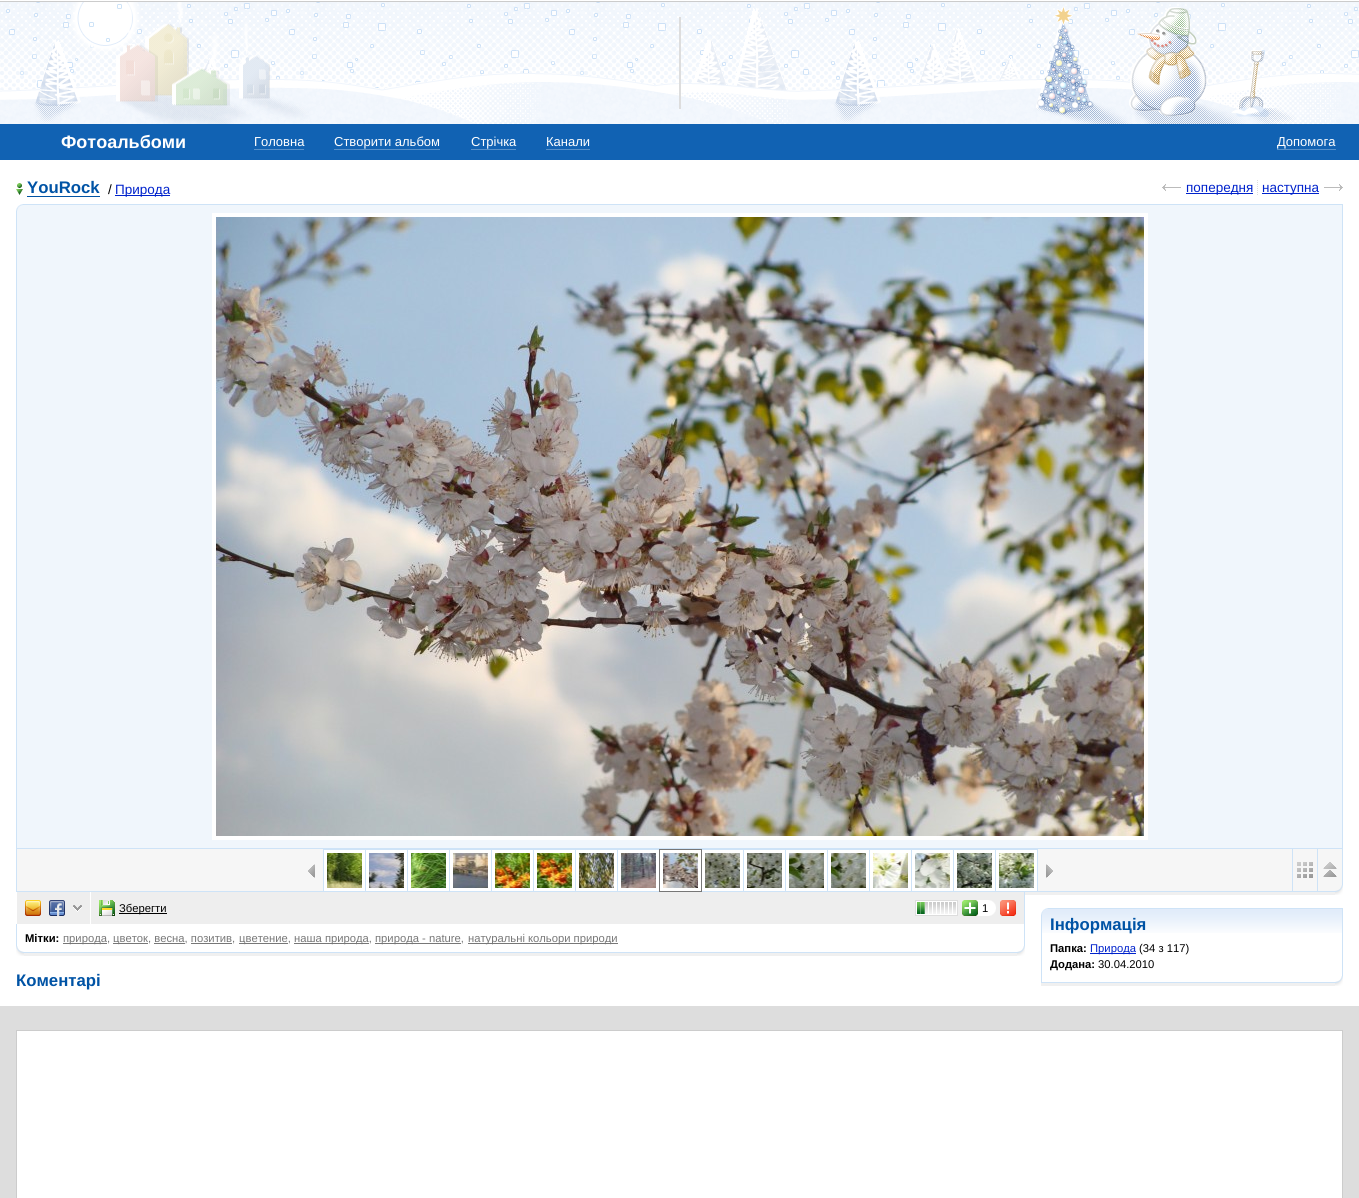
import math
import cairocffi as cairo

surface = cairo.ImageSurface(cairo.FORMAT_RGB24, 1359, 1198)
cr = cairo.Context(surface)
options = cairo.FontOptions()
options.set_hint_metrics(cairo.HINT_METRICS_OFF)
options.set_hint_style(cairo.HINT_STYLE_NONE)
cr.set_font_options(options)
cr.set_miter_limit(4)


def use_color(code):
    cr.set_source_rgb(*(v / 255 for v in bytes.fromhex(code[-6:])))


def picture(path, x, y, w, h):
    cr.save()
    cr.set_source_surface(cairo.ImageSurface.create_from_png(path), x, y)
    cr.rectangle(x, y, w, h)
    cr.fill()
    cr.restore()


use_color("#ffffff")
cr.paint()
use_color("#cccccc")
cr.rectangle(0, 1, 1359, 1)
cr.fill()
picture("img1.png", 0, 2, 1359, 122)
use_color("#dddddd")
cr.rectangle(679, 17, 2, 92)
cr.fill()
use_color("#1162b3")
cr.rectangle(0, 124, 1359, 36)
cr.fill()
cr.select_font_face("Liberation Sans", cairo.FONT_SLANT_NORMAL, cairo.FONT_WEIGHT_BOLD)
cr.set_font_size(18)
use_color("#ffffff")
cr.move_to(61, 148)
cr.show_text("Фотоальбоми")
cr.select_font_face("Liberation Sans")
cr.set_font_size(13)
cr.move_to(254, 146)
cr.show_text("Головна")
use_color("#5891ca")
cr.rectangle(254, 149, 50, 1)
cr.fill()
use_color("#ffffff")
cr.move_to(334, 146)
cr.show_text("Створити альбом")
use_color("#5891ca")
cr.rectangle(334, 149, 106, 1)
cr.fill()
use_color("#ffffff")
cr.move_to(471, 146)
cr.show_text("Стрічка")
use_color("#5891ca")
cr.rectangle(471, 149, 45, 1)
cr.fill()
use_color("#ffffff")
cr.move_to(546, 146)
cr.show_text("Канали")
use_color("#5891ca")
cr.rectangle(546, 149, 44, 1)
cr.fill()
use_color("#ffffff")
cr.move_to(1277, 146)
cr.show_text("Допомога")
use_color("#5891ca")
cr.rectangle(1277, 149, 59, 1)
cr.fill()
use_color("#0053a5")
cr.rectangle(27, 196, 73, 1)
cr.fill()
picture("img2.png", 16, 183, 7, 12)
cr.select_font_face("Liberation Sans", cairo.FONT_SLANT_NORMAL, cairo.FONT_WEIGHT_BOLD)
cr.set_font_size(16.75)
cr.move_to(27, 193)
cr.show_text("YouRock")
cr.select_font_face("Liberation Sans")
cr.set_font_size(13.5)
use_color("#000000")
cr.move_to(108, 194)
cr.show_text("/")
use_color("#0022cc")
cr.rectangle(115, 195, 55, 1)
cr.fill()
cr.move_to(115, 194)
cr.show_text("Природа")
cr.new_path()
cr.move_to(1257.5, 180)
cr.line_to(1257.5, 195)
use_color("#dddddd")
cr.set_line_width(1)
cr.set_dash([1, 1])
cr.stroke()
picture("img3.png", 1162, 184, 19, 7)
use_color("#0022cc")
cr.rectangle(1186, 193, 67, 1)
cr.fill()
cr.move_to(1186, 192)
cr.show_text("попередня")
cr.rectangle(1262, 193, 57, 1)
cr.fill()
cr.move_to(1262, 192)
cr.show_text("наступна")
picture("img4.png", 1324, 184, 19, 7)
use_color("#f0f0f0")
cr.rectangle(1025, 892, 318, 3)
cr.fill()
use_color("#f0f6fc")
cr.rectangle(17, 205, 1325, 643)
cr.fill()
cr.rectangle(16.5, 204.5, 1326, 687)
use_color("#cee3f7")
cr.set_dash([])
cr.stroke()
cr.rectangle(214, 215, 932, 623)
use_color("#ffffff")
cr.set_line_width(4)
cr.stroke()
picture("img5.png", 216, 217, 928, 619)
use_color("#f6f6f6")
cr.rectangle(17, 849, 1325, 42)
cr.fill()
use_color("#cee3f7")
cr.rectangle(17, 848, 1325, 1)
cr.fill()
picture("img6.png", 308, 864, 7, 14)
use_color("#ffffff")
cr.rectangle(323.5, 849.5, 42, 42)
cr.fill_preserve()
use_color("#cee3f7")
cr.set_line_width(1)
cr.stroke()
picture("img7.png", 327, 853, 35, 35)
use_color("#ffffff")
cr.rectangle(365.5, 849.5, 42, 42)
cr.fill_preserve()
use_color("#cee3f7")
cr.stroke()
picture("img8.png", 369, 853, 35, 35)
use_color("#ffffff")
cr.rectangle(407.5, 849.5, 42, 42)
cr.fill_preserve()
use_color("#cee3f7")
cr.stroke()
picture("img9.png", 411, 853, 35, 35)
use_color("#ffffff")
cr.rectangle(449.5, 849.5, 42, 42)
cr.fill_preserve()
use_color("#cee3f7")
cr.stroke()
picture("img10.png", 453, 853, 35, 35)
use_color("#ffffff")
cr.rectangle(491.5, 849.5, 42, 42)
cr.fill_preserve()
use_color("#cee3f7")
cr.stroke()
picture("img11.png", 495, 853, 35, 35)
use_color("#ffffff")
cr.rectangle(533.5, 849.5, 42, 42)
cr.fill_preserve()
use_color("#cee3f7")
cr.stroke()
picture("img12.png", 537, 853, 35, 35)
use_color("#ffffff")
cr.rectangle(575.5, 849.5, 42, 42)
cr.fill_preserve()
use_color("#cee3f7")
cr.stroke()
picture("img13.png", 579, 853, 35, 35)
use_color("#ffffff")
cr.rectangle(617.5, 849.5, 42, 42)
cr.fill_preserve()
use_color("#cee3f7")
cr.stroke()
picture("img14.png", 621, 853, 35, 35)
use_color("#ffffff")
cr.rectangle(701.5, 849.5, 42, 42)
cr.fill_preserve()
use_color("#cee3f7")
cr.stroke()
use_color("#ffffff")
cr.rectangle(659.5, 849.5, 42, 42)
cr.fill_preserve()
use_color("#777777")
cr.stroke()
picture("img15.png", 663, 853, 35, 35)
picture("img16.png", 705, 853, 35, 35)
use_color("#ffffff")
cr.rectangle(743.5, 849.5, 42, 42)
cr.fill_preserve()
use_color("#cee3f7")
cr.stroke()
picture("img17.png", 747, 853, 35, 35)
use_color("#ffffff")
cr.rectangle(785.5, 849.5, 42, 42)
cr.fill_preserve()
use_color("#cee3f7")
cr.stroke()
picture("img18.png", 789, 853, 35, 35)
use_color("#ffffff")
cr.rectangle(827.5, 849.5, 42, 42)
cr.fill_preserve()
use_color("#cee3f7")
cr.stroke()
picture("img19.png", 831, 853, 35, 35)
use_color("#ffffff")
cr.rectangle(869.5, 849.5, 42, 42)
cr.fill_preserve()
use_color("#cee3f7")
cr.stroke()
picture("img20.png", 873, 853, 35, 35)
use_color("#ffffff")
cr.rectangle(911.5, 849.5, 42, 42)
cr.fill_preserve()
use_color("#cee3f7")
cr.stroke()
picture("img21.png", 915, 853, 35, 35)
use_color("#ffffff")
cr.rectangle(953.5, 849.5, 42, 42)
cr.fill_preserve()
use_color("#cee3f7")
cr.stroke()
picture("img22.png", 957, 853, 35, 35)
use_color("#ffffff")
cr.rectangle(995.5, 849.5, 42, 42)
cr.fill_preserve()
use_color("#cee3f7")
cr.stroke()
picture("img23.png", 999, 853, 35, 35)
picture("img24.png", 1046, 864, 7, 14)
cr.rectangle(1292.5, 848.5, 25, 43)
cr.stroke()
picture("img25.png", 1297, 862, 16, 16)
picture("img26.png", 1323, 862, 14, 15)
picture("img27.png", 16, 204, 7, 7)
picture("img28.png", 1335, 885, 8, 10)
use_color("#eeeeee")
cr.rectangle(17, 892, 1007, 32)
cr.fill()
use_color("#cee3f7")
cr.rectangle(1024, 892, 1, 61)
cr.fill()
use_color("#ffffff")
cr.rectangle(90, 892, 1, 33)
cr.fill()
picture("img29.png", 25, 900, 16, 16)
picture("img30.png", 49, 900, 16, 16)
picture("img31.png", 73, 905, 9, 7)
picture("img32.png", 99, 900, 16, 16)
use_color("#000000")
cr.rectangle(119, 913, 48, 1)
cr.fill()
cr.set_font_size(11.25)
cr.move_to(119, 912)
cr.show_text("Зберегти")
use_color("#ffffff")
cr.rectangle(916, 901, 41, 14)
cr.fill()
picture("img33.png", 925, 902, 31, 12)
cr.rectangle(915.5, 900.5, 42, 15)
use_color("#dddddd")
cr.stroke()
picture("img34.png", 917, 902, 8, 12)
use_color("#ffffff")
cr.rectangle(976, 900, 12, 16)
cr.fill()
picture("img35.png", 962, 900, 16, 16)
picture("img36.png", 988, 900, 8, 16)
use_color("#000000")
cr.move_to(982, 912)
cr.show_text("1")
picture("img37.png", 1000, 900, 16, 16)
use_color("#f0f0f0")
cr.rectangle(16, 953, 1009, 3)
cr.fill()
use_color("#cee3f7")
cr.rectangle(16, 952, 1009, 1)
cr.fill()
cr.rectangle(16, 924, 1, 29)
cr.fill()
cr.select_font_face("Liberation Sans", cairo.FONT_SLANT_NORMAL, cairo.FONT_WEIGHT_BOLD)
use_color("#000000")
cr.move_to(25, 942)
cr.show_text("Мітки:")
use_color("#777777")
cr.rectangle(63, 943, 44, 1)
cr.fill()
cr.select_font_face("Liberation Sans")
cr.move_to(63, 942)
cr.show_text("природа,")
cr.rectangle(113, 943, 35, 1)
cr.fill()
cr.move_to(113, 942)
cr.show_text("цветок, весна, позитив,")
cr.rectangle(154, 943, 31, 1)
cr.fill()
cr.rectangle(191, 943, 41, 1)
cr.fill()
cr.rectangle(239, 943, 49, 1)
cr.fill()
cr.move_to(239, 942)
cr.show_text("цветение,")
cr.rectangle(294, 943, 75, 1)
cr.fill()
cr.move_to(294, 942)
cr.show_text("наша природа,")
cr.rectangle(375, 943, 86, 1)
cr.fill()
cr.move_to(375, 942)
cr.show_text("природа - nature,")
cr.rectangle(468, 943, 150, 1)
cr.fill()
cr.move_to(468, 942)
cr.show_text("натуральні кольори природи")
picture("img38.png", 16, 946, 8, 10)
picture("img39.png", 1017, 946, 8, 10)
cr.select_font_face("Liberation Sans", cairo.FONT_SLANT_NORMAL, cairo.FONT_WEIGHT_BOLD)
cr.set_font_size(16.75)
use_color("#0053a5")
cr.move_to(16, 986)
cr.show_text("Коментарі")
use_color("#f0f0f0")
cr.rectangle(1041, 983, 302, 3)
cr.fill()
picture("img41.png", 1042, 909, 300, 24)
cr.rectangle(1041.5, 908.5, 301, 74)
use_color("#cee3f7")
cr.stroke()
picture("img40.png", 1041, 908, 7, 7)
use_color("#0053a5")
cr.move_to(1050, 930)
cr.show_text("Інформація")
cr.set_font_size(11.25)
use_color("#000000")
cr.move_to(1050, 952)
cr.show_text("Папка:")
use_color("#0022cc")
cr.rectangle(1090, 953, 46, 1)
cr.fill()
cr.select_font_face("Liberation Sans")
cr.move_to(1090, 952)
cr.show_text("Природа")
use_color("#000000")
cr.move_to(1139, 952)
cr.show_text("(34 з 117)")
cr.select_font_face("Liberation Sans", cairo.FONT_SLANT_NORMAL, cairo.FONT_WEIGHT_BOLD)
cr.move_to(1050, 968)
cr.show_text("Додана:")
cr.select_font_face("Liberation Sans")
cr.move_to(1098, 968)
cr.show_text("30.04.2010")
picture("img39.png", 1335, 976, 8, 10)
use_color("#dddddd")
cr.rectangle(0, 1006, 1359, 192)
cr.fill()
use_color("#ffffff")
cr.rectangle(16.5, 1030.5, 1326, 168)
cr.fill_preserve()
use_color("#cccccc")
cr.stroke()
surface.write_to_png("result.png")
